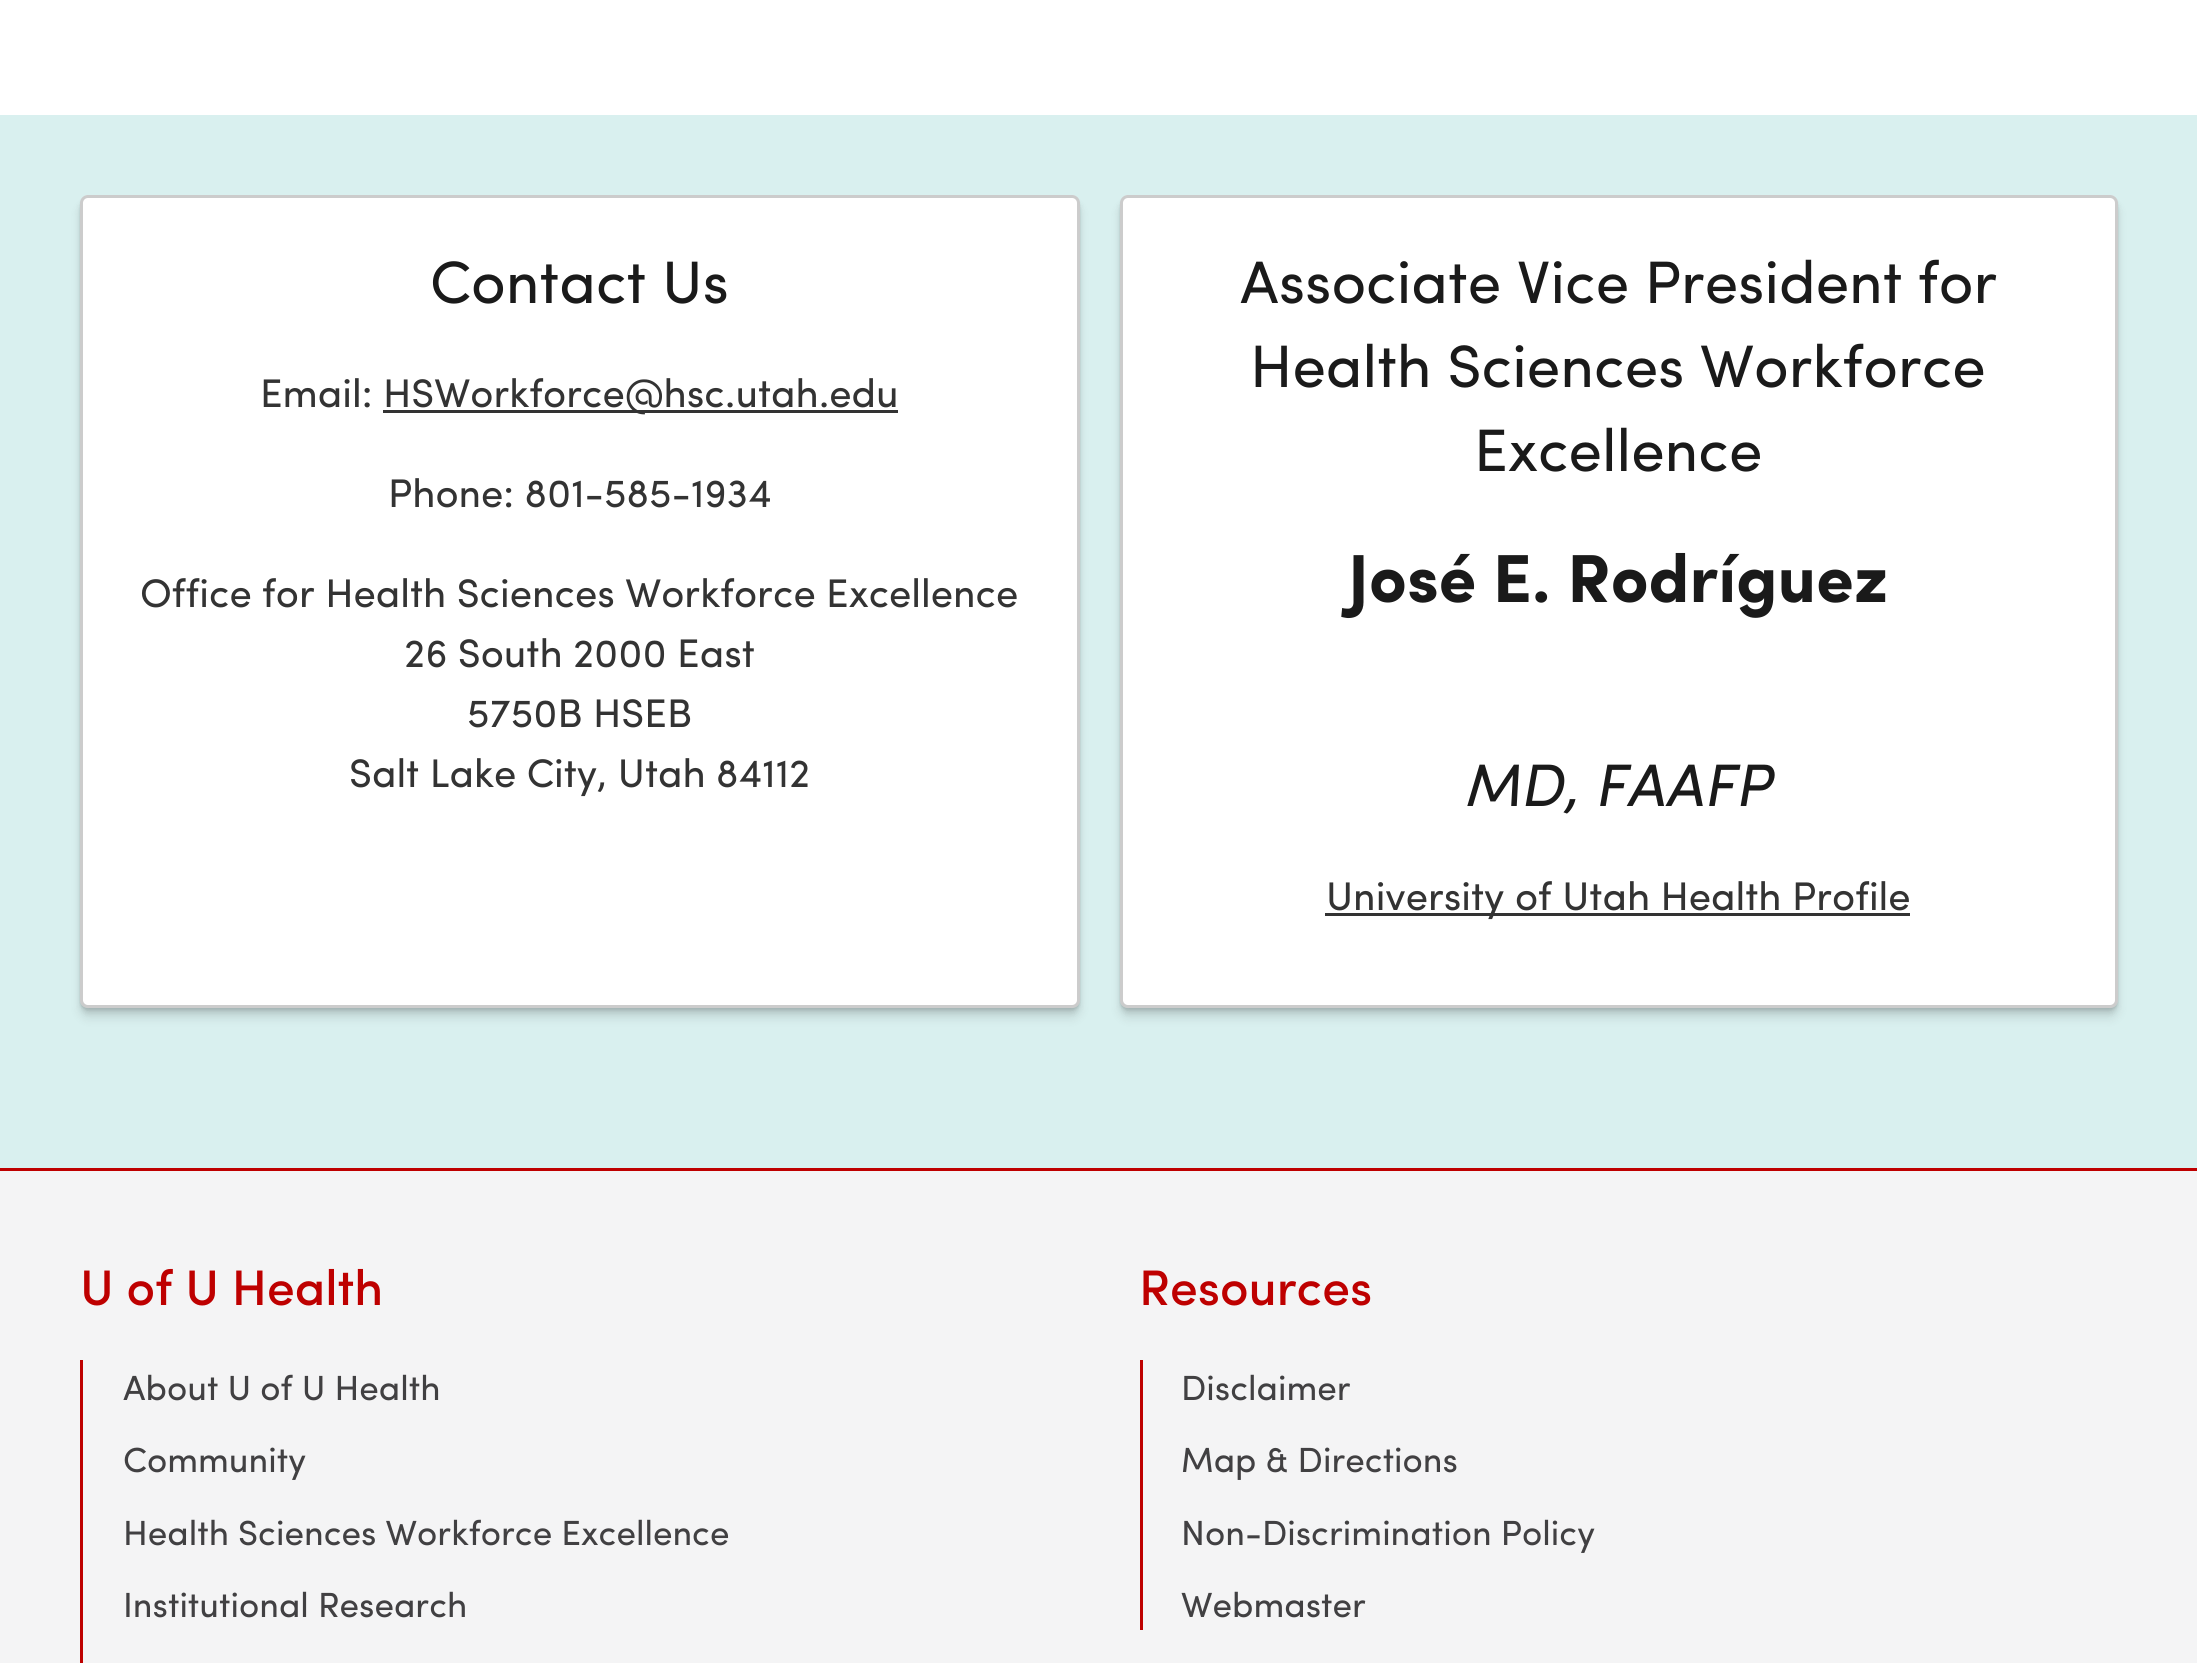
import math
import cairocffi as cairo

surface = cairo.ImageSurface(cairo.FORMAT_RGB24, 2197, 1663)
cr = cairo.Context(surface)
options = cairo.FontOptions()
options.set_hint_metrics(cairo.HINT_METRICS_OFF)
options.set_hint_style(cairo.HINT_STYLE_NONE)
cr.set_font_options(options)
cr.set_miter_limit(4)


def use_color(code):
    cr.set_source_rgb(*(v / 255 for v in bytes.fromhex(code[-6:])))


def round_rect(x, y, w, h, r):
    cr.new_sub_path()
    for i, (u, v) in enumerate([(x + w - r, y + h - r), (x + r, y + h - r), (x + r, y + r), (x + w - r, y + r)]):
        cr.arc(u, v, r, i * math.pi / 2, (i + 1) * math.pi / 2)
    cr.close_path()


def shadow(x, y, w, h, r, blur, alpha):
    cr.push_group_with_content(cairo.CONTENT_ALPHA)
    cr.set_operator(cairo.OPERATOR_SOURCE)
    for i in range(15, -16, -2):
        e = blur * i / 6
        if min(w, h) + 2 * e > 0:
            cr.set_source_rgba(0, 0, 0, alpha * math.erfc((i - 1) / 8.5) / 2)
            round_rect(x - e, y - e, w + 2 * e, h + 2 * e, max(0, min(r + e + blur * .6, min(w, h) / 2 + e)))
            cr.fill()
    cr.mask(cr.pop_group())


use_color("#ffffff")
cr.paint()
use_color("#d9f0ef")
cr.rectangle(0, 115, 2197, 1053)
cr.fill()
use_color("#000000")
shadow(80, 205, 1000, 813, 8, 5, 0.1)
shadow(80, 200, 1000, 813, 8, 2.5, 0.09)
shadow(80, 198, 1000, 812, 8, 1, 0.08)
use_color("#ffffff")
round_rect(80, 195, 1000, 813, 8)
cr.fill()
round_rect(81.5, 196.5, 997, 810, 6.5)
cr.set_source_rgba(0, 0, 0, 0.2)
cr.set_line_width(3)
cr.stroke()
cr.select_font_face("Sofia")
cr.set_font_size(60)
use_color("#1a1a1a")
cr.move_to(430, 303)
cr.show_text("Contact Us")
cr.set_font_size(40)
use_color("#333333")
cr.move_to(260, 407)
cr.show_text("Email:")
cr.rectangle(383, 410, 515, 3)
cr.fill()
cr.move_to(383, 407)
cr.show_text("HSWorkforce@hsc.utah.edu")
cr.move_to(388, 507)
cr.show_text("Phone: 801-585-1934")
cr.move_to(140, 607)
cr.show_text("Office for Health Sciences Workforce Excellence")
cr.move_to(404, 667)
cr.show_text("26 South 2000 East")
cr.move_to(467, 727)
cr.show_text("5750B HSEB")
cr.move_to(349, 787)
cr.show_text("Salt Lake City, Utah 84112")
use_color("#000000")
shadow(1120, 205, 998, 813, 8, 5, 0.1)
shadow(1120, 200, 998, 813, 8, 2.5, 0.09)
shadow(1120, 198, 998, 812, 8, 1, 0.08)
use_color("#ffffff")
round_rect(1120, 195, 998, 813, 8)
cr.fill()
round_rect(1121.5, 196.5, 995, 810, 6.5)
cr.set_source_rgba(0, 0, 0, 0.2)
cr.stroke()
cr.set_font_size(60)
use_color("#1a1a1a")
cr.move_to(1240, 303)
cr.show_text("Associate Vice President for")
cr.move_to(1250, 387)
cr.show_text("Health Sciences Workforce")
cr.move_to(1474, 471)
cr.show_text("Excellence")
cr.select_font_face("Sofia", cairo.FONT_SLANT_NORMAL, cairo.FONT_WEIGHT_BOLD)
cr.set_font_size(68)
cr.move_to(1348, 602)
cr.show_text("José E. Rodríguez")
cr.select_font_face("Sofia", cairo.FONT_SLANT_ITALIC)
cr.set_font_size(60)
cr.move_to(1464, 806)
cr.show_text("MD, FAAFP")
use_color("#333333")
cr.rectangle(1325, 913, 585, 3)
cr.fill()
cr.select_font_face("Sofia")
cr.set_font_size(40)
cr.move_to(1326, 910)
cr.show_text("University of Utah Health Profile")
use_color("#f4f4f5")
cr.rectangle(0, 1171, 2197, 492)
cr.fill()
use_color("#be0000")
cr.rectangle(0, 1168, 2197, 3)
cr.fill()
cr.select_font_face("Sofia Medium")
cr.set_font_size(50)
cr.move_to(80, 1305)
cr.show_text("U of U Health")
cr.rectangle(80, 1360, 3, 303)
cr.fill()
cr.select_font_face("Sofia")
cr.set_font_size(35)
use_color("#414042")
cr.move_to(123, 1400)
cr.show_text("About U of U Health")
cr.move_to(123, 1472)
cr.show_text("Community")
cr.move_to(123, 1545)
cr.show_text("Health Sciences Workforce Excellence")
cr.move_to(123, 1617)
cr.show_text("Institutional Research")
cr.select_font_face("Sofia Medium")
cr.set_font_size(50)
use_color("#be0000")
cr.move_to(1139, 1305)
cr.show_text("Resources")
cr.rectangle(1140, 1360, 3, 270)
cr.fill()
cr.select_font_face("Sofia")
cr.set_font_size(35)
use_color("#414042")
cr.move_to(1181, 1400)
cr.show_text("Disclaimer")
cr.move_to(1181, 1472)
cr.show_text("Map & Directions")
cr.move_to(1181, 1545)
cr.show_text("Non-Discrimination Policy")
cr.move_to(1181, 1617)
cr.show_text("Webmaster")
surface.write_to_png("result.png")
